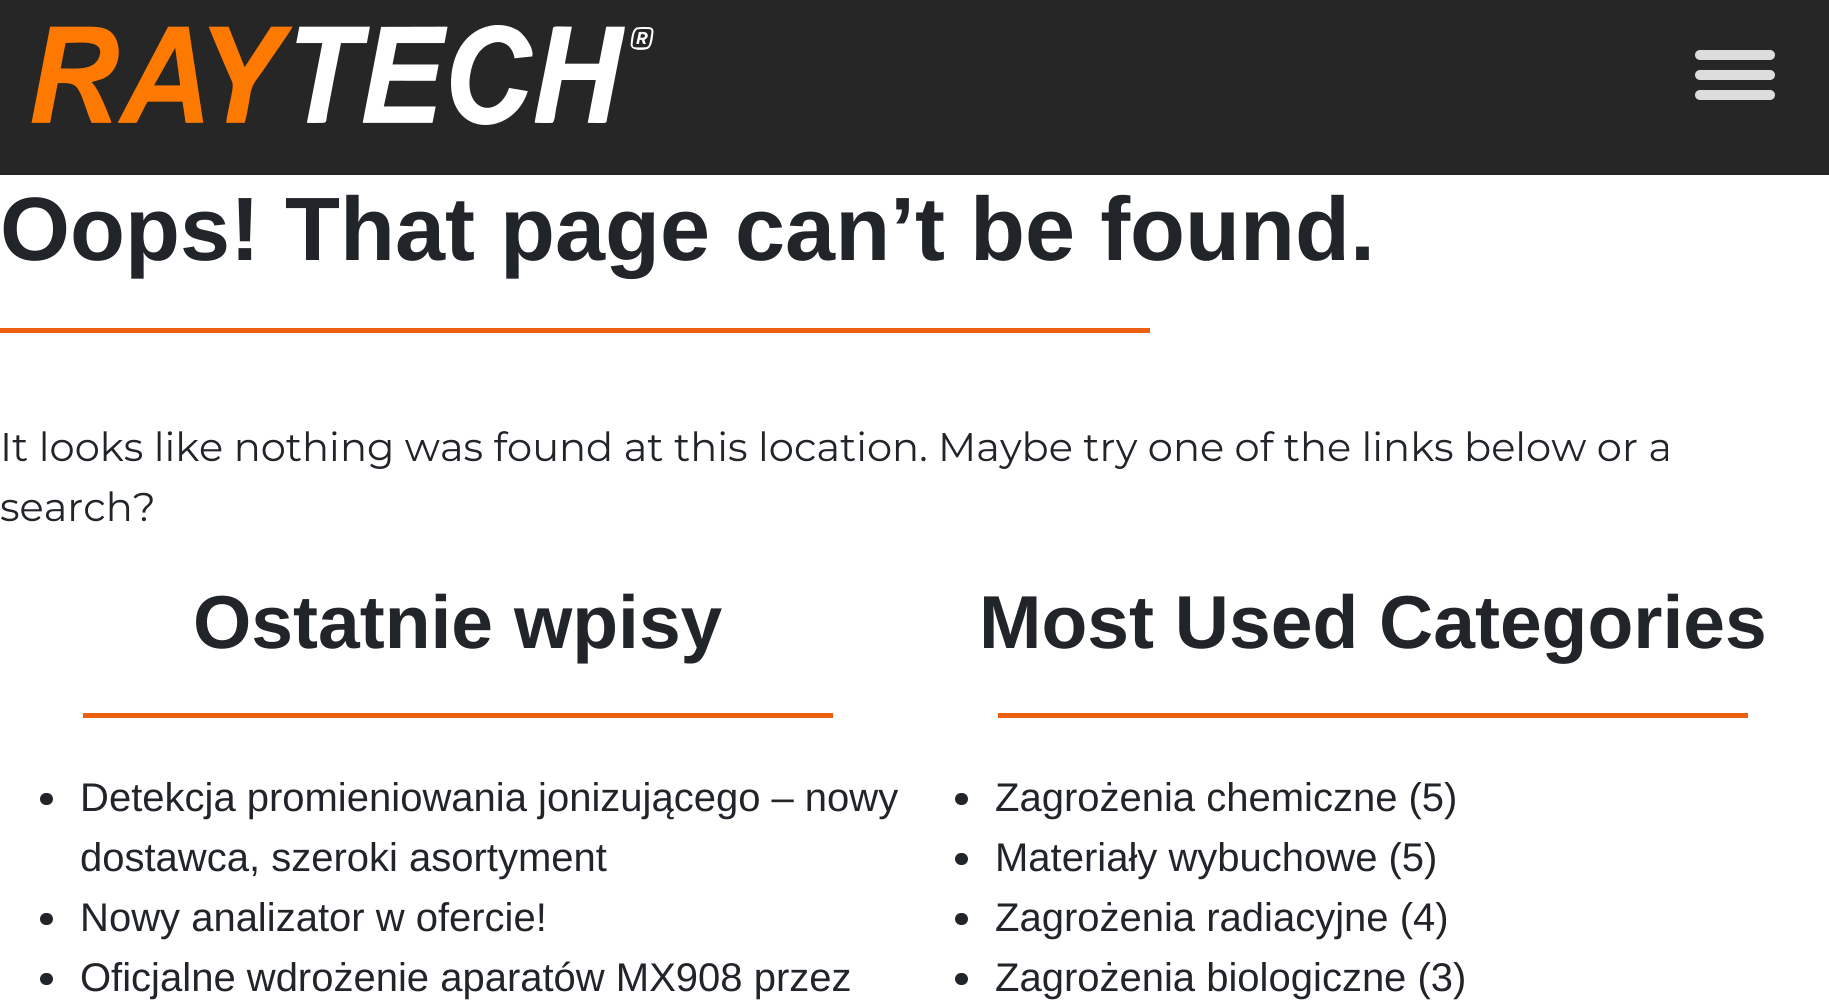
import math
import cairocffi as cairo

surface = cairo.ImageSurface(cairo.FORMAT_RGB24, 1829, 1002)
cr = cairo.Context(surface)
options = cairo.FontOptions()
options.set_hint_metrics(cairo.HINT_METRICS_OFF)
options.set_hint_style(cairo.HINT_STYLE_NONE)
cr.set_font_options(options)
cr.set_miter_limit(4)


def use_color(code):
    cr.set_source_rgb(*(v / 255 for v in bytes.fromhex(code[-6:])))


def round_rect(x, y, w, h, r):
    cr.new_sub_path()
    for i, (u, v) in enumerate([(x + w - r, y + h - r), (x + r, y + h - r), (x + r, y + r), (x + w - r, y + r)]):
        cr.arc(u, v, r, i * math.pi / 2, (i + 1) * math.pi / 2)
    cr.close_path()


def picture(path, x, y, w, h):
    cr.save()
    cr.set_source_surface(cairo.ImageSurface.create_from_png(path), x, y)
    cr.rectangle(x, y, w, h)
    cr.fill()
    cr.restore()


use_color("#ffffff")
cr.paint()
use_color("#262626")
cr.rectangle(0, 0, 1829, 175)
cr.fill()
picture("img1.png", 31, 25, 623, 100)
use_color("#dddddd")
round_rect(1695, 50, 80, 10, 5)
cr.fill()
round_rect(1695, 70, 80, 10, 5)
cr.fill()
round_rect(1695, 90, 80, 10, 5)
cr.fill()
cr.select_font_face("Liberation Sans", cairo.FONT_SLANT_NORMAL, cairo.FONT_WEIGHT_BOLD)
cr.set_font_size(90)
use_color("#212529")
cr.move_to(0, 260)
cr.show_text("Oops! That page can’t be found.")
use_color("#eb600e")
cr.rectangle(0, 328, 1150, 5)
cr.fill()
cr.select_font_face("Montserrat")
cr.set_font_size(40)
use_color("#212529")
cr.move_to(0, 461)
cr.show_text("It looks like nothing was found at this location. Maybe try one of the links below or a")
cr.move_to(0, 521)
cr.show_text("search?")
cr.select_font_face("Liberation Sans", cairo.FONT_SLANT_NORMAL, cairo.FONT_WEIGHT_BOLD)
cr.set_font_size(75)
cr.move_to(193, 648)
cr.show_text("Ostatnie wpisy")
use_color("#eb600e")
cr.rectangle(83, 713, 750, 5)
cr.fill()
use_color("#212529")
round_rect(40, 793, 13, 12, 6)
cr.fill()
cr.select_font_face("Liberation Sans")
cr.set_font_size(40)
cr.move_to(80, 811)
cr.show_text("Detekcja promieniowania jonizującego – nowy")
cr.move_to(80, 871)
cr.show_text("dostawca, szeroki asortyment")
round_rect(40, 913, 13, 12, 6)
cr.fill()
cr.move_to(80, 931)
cr.show_text("Nowy analizator w ofercie!")
round_rect(40, 973, 13, 12, 6)
cr.fill()
cr.move_to(80, 991)
cr.show_text("Oficjalne wdrożenie aparatów MX908 przez")
cr.select_font_face("Liberation Sans", cairo.FONT_SLANT_NORMAL, cairo.FONT_WEIGHT_BOLD)
cr.set_font_size(75)
cr.move_to(979, 648)
cr.show_text("Most Used Categories")
use_color("#eb600e")
cr.rectangle(998, 713, 750, 5)
cr.fill()
use_color("#212529")
round_rect(955, 793, 13, 12, 6)
cr.fill()
cr.select_font_face("Liberation Sans")
cr.set_font_size(40)
cr.move_to(995, 811)
cr.show_text("Zagrożenia chemiczne (5)")
round_rect(955, 853, 13, 12, 6)
cr.fill()
cr.move_to(995, 871)
cr.show_text("Materiały wybuchowe (5)")
round_rect(955, 913, 13, 12, 6)
cr.fill()
cr.move_to(995, 931)
cr.show_text("Zagrożenia radiacyjne (4)")
round_rect(955, 973, 13, 12, 6)
cr.fill()
cr.move_to(995, 991)
cr.show_text("Zagrożenia biologiczne (3)")
surface.write_to_png("result.png")
